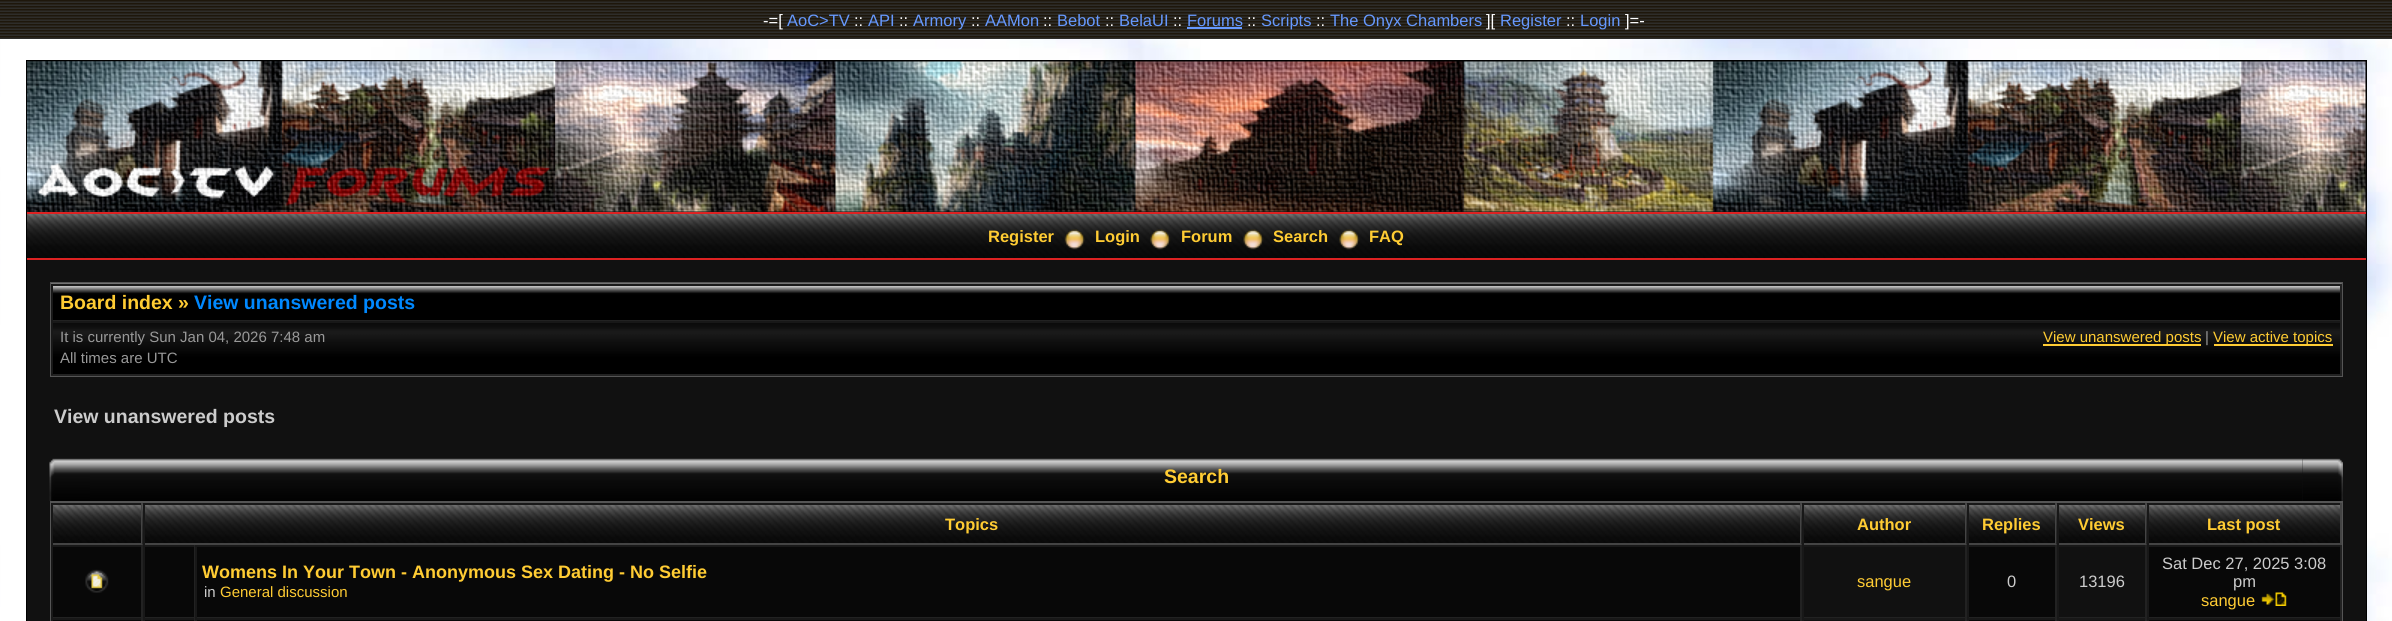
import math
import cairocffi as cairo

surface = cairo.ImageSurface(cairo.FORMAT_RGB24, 2392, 621)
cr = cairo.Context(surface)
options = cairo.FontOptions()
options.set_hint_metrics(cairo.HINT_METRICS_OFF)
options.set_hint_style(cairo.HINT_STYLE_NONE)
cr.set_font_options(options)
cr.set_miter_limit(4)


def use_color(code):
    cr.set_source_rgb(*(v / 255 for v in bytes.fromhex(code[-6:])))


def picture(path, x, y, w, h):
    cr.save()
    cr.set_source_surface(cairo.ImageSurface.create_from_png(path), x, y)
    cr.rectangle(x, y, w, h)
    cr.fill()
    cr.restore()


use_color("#ffffff")
cr.paint()
picture("img1.png", 0, 39, 2392, 582)
picture("img2.png", 0, 0, 2392, 39)
cr.select_font_face("Liberation Sans")
cr.set_font_size(16.5)
use_color("#ffffff")
cr.move_to(763, 26)
cr.show_text("-=[")
use_color("#6699ff")
cr.move_to(787, 26)
cr.show_text("AoC>TV")
use_color("#ffffff")
cr.move_to(854, 26)
cr.show_text("::")
use_color("#6699ff")
cr.move_to(868, 26)
cr.show_text("API")
use_color("#ffffff")
cr.move_to(899, 26)
cr.show_text("::")
use_color("#6699ff")
cr.move_to(913, 26)
cr.show_text("Armory")
use_color("#ffffff")
cr.move_to(971, 26)
cr.show_text("::")
use_color("#6699ff")
cr.move_to(985, 26)
cr.show_text("AAMon")
use_color("#ffffff")
cr.move_to(1043, 26)
cr.show_text("::")
use_color("#6699ff")
cr.move_to(1057, 26)
cr.show_text("Bebot")
use_color("#ffffff")
cr.move_to(1105, 26)
cr.show_text("::")
use_color("#6699ff")
cr.move_to(1119, 26)
cr.show_text("BelaUI")
use_color("#ffffff")
cr.move_to(1173, 26)
cr.show_text("::")
use_color("#6699ff")
cr.move_to(1187, 26)
cr.show_text("Forums")
cr.rectangle(1187, 27, 55, 2)
cr.fill()
use_color("#ffffff")
cr.move_to(1247, 26)
cr.show_text("::")
use_color("#6699ff")
cr.move_to(1261, 26)
cr.show_text("Scripts")
use_color("#ffffff")
cr.move_to(1316, 26)
cr.show_text("::")
use_color("#6699ff")
cr.move_to(1330, 26)
cr.show_text("The Onyx Chambers")
use_color("#ffffff")
cr.move_to(1486, 26)
cr.show_text("][")
use_color("#6699ff")
cr.move_to(1500, 26)
cr.show_text("Register")
use_color("#ffffff")
cr.move_to(1566, 26)
cr.show_text("::")
use_color("#6699ff")
cr.move_to(1580, 26)
cr.show_text("Login")
use_color("#ffffff")
cr.move_to(1625, 26)
cr.show_text("]=-")
cr.rectangle(27, 61, 2339, 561)
use_color("#000000")
cr.stroke()
use_color("#111111")
cr.rectangle(27, 62, 2339, 559)
cr.fill()
picture("img3.png", 27, 61, 2339, 151)
picture("img4.png", 27, 61, 528, 151)
picture("img5.png", 27, 214, 2339, 44)
use_color("#dd2222")
cr.rectangle(27, 212, 2339, 2)
cr.fill()
cr.rectangle(27, 258, 2339, 2)
cr.fill()
cr.select_font_face("Liberation Sans", cairo.FONT_SLANT_NORMAL, cairo.FONT_WEIGHT_BOLD)
use_color("#ffcc33")
cr.move_to(988, 242)
cr.show_text("Register")
picture("img6.png", 1064, 229, 21, 21)
cr.move_to(1095, 242)
cr.show_text("Login")
picture("img7.png", 1150, 229, 21, 21)
cr.move_to(1181, 242)
cr.show_text("Forum")
picture("img8.png", 1243, 229, 21, 21)
cr.move_to(1273, 242)
cr.show_text("Search")
picture("img9.png", 1339, 229, 21, 21)
cr.move_to(1369, 242)
cr.show_text("FAQ")
cr.rectangle(51, 283, 2291, 93)
use_color("#555555")
cr.stroke()
picture("img10.png", 51, 283, 2291, 37)
use_color("#181818")
cr.rectangle(51, 284, 2291, 2)
cr.fill()
use_color("#222222")
cr.rectangle(2340, 284, 2, 37)
cr.fill()
cr.rectangle(51, 320, 2291, 1)
cr.fill()
use_color("#181818")
cr.rectangle(51, 284, 2, 37)
cr.fill()
cr.set_font_size(19.5)
use_color("#ffcc33")
cr.move_to(60, 309)
cr.show_text("Board index »")
use_color("#0088ff")
cr.move_to(194, 309)
cr.show_text("View unanswered posts")
picture("img11.png", 53, 323, 2287, 51)
use_color("#181818")
cr.rectangle(51, 321, 2291, 2)
cr.fill()
use_color("#222222")
cr.rectangle(2340, 321, 2, 54)
cr.fill()
cr.rectangle(51, 374, 2291, 2)
cr.fill()
use_color("#181818")
cr.rectangle(51, 321, 2, 54)
cr.fill()
cr.select_font_face("Liberation Sans")
cr.set_font_size(15)
use_color("#999999")
cr.move_to(60, 342)
cr.show_text("It is currently Sun Jan 04, 2026 7:48 am")
cr.move_to(60, 363)
cr.show_text("All times are UTC")
use_color("#ffcc33")
cr.rectangle(2043, 344, 158, 2)
cr.fill()
cr.move_to(2043, 342)
cr.show_text("View unanswered posts")
use_color("#999999")
cr.move_to(2205, 342)
cr.show_text("|")
use_color("#ffcc33")
cr.rectangle(2214, 344, 119, 2)
cr.fill()
cr.move_to(2213, 342)
cr.show_text("View active topics")
cr.select_font_face("Liberation Sans", cairo.FONT_SLANT_NORMAL, cairo.FONT_WEIGHT_BOLD)
cr.set_font_size(19.5)
use_color("#cccccc")
cr.move_to(54, 423)
cr.show_text("View unanswered posts")
picture("img12.png", 49, 458, 41, 43)
picture("img13.png", 2302, 458, 41, 43)
picture("img14.png", 90, 458, 2213, 43)
use_color("#ffcc33")
cr.move_to(1164, 483)
cr.show_text("Search")
cr.rectangle(51, 502, 2291, 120)
use_color("#555555")
cr.stroke()
picture("img15.png", 53, 505, 88, 38)
use_color("#181818")
cr.rectangle(51, 503, 92, 2)
cr.fill()
use_color("#444444")
cr.rectangle(141, 503, 2, 42)
cr.fill()
cr.rectangle(51, 543, 92, 2)
cr.fill()
use_color("#181818")
cr.rectangle(51, 503, 2, 42)
cr.fill()
picture("img16.png", 142, 504, 1658, 41)
cr.rectangle(143, 503, 1659, 2)
cr.fill()
use_color("#444444")
cr.rectangle(1800, 503, 2, 42)
cr.fill()
cr.rectangle(143, 543, 1659, 2)
cr.fill()
use_color("#181818")
cr.rectangle(143, 503, 2, 42)
cr.fill()
cr.set_font_size(16.5)
use_color("#ffcc33")
cr.move_to(945, 530)
cr.show_text("Topics")
picture("img17.png", 1801, 504, 164, 41)
use_color("#181818")
cr.rectangle(1802, 503, 165, 2)
cr.fill()
use_color("#444444")
cr.rectangle(1965, 503, 2, 42)
cr.fill()
cr.rectangle(1802, 543, 165, 2)
cr.fill()
use_color("#181818")
cr.rectangle(1802, 503, 2, 42)
cr.fill()
use_color("#ffcc33")
cr.move_to(1857, 530)
cr.show_text("Author")
picture("img18.png", 1966, 504, 89, 41)
use_color("#181818")
cr.rectangle(1967, 503, 90, 2)
cr.fill()
use_color("#444444")
cr.rectangle(2055, 503, 2, 42)
cr.fill()
cr.rectangle(1967, 543, 90, 2)
cr.fill()
use_color("#181818")
cr.rectangle(1967, 503, 2, 42)
cr.fill()
use_color("#ffcc33")
cr.move_to(1982, 530)
cr.show_text("Replies")
picture("img19.png", 2056, 504, 89, 41)
use_color("#181818")
cr.rectangle(2057, 503, 90, 2)
cr.fill()
use_color("#444444")
cr.rectangle(2145, 503, 2, 42)
cr.fill()
cr.rectangle(2057, 543, 90, 2)
cr.fill()
use_color("#181818")
cr.rectangle(2057, 503, 2, 42)
cr.fill()
use_color("#ffcc33")
cr.move_to(2078, 530)
cr.show_text("Views")
picture("img20.png", 2146, 504, 194, 41)
use_color("#181818")
cr.rectangle(2147, 503, 195, 2)
cr.fill()
use_color("#444444")
cr.rectangle(2340, 503, 2, 42)
cr.fill()
cr.rectangle(2147, 543, 195, 2)
cr.fill()
use_color("#181818")
cr.rectangle(2147, 503, 2, 42)
cr.fill()
use_color("#ffcc33")
cr.move_to(2207, 530)
cr.show_text("Last post")
use_color("#080808")
cr.rectangle(53, 547, 88, 70)
cr.fill()
use_color("#181818")
cr.rectangle(51, 545, 2291, 2)
cr.fill()
use_color("#222222")
cr.rectangle(141, 545, 2, 73)
cr.fill()
cr.rectangle(51, 617, 92, 1)
cr.fill()
use_color("#181818")
cr.rectangle(51, 545, 2, 73)
cr.fill()
picture("img21.png", 85, 569, 24, 24)
use_color("#080808")
cr.rectangle(145, 547, 49, 70)
cr.fill()
use_color("#222222")
cr.rectangle(194, 545, 1, 73)
cr.fill()
cr.rectangle(143, 617, 52, 1)
cr.fill()
use_color("#181818")
cr.rectangle(143, 545, 2, 73)
cr.fill()
use_color("#080808")
cr.rectangle(197, 547, 1603, 70)
cr.fill()
use_color("#222222")
cr.rectangle(1800, 545, 2, 73)
cr.fill()
cr.rectangle(195, 617, 1607, 1)
cr.fill()
use_color("#181818")
cr.rectangle(195, 545, 2, 73)
cr.fill()
cr.set_font_size(18)
use_color("#ffcc33")
cr.move_to(202, 578)
cr.show_text("Womens In Your Town - Anonymous Sex Dating - No Selfie")
cr.select_font_face("Liberation Sans")
cr.set_font_size(15)
use_color("#cccccc")
cr.move_to(204, 597)
cr.show_text("in")
use_color("#ffcc33")
cr.move_to(220, 597)
cr.show_text("General discussion")
use_color("#222222")
cr.rectangle(1965, 545, 2, 73)
cr.fill()
cr.rectangle(1802, 617, 165, 1)
cr.fill()
use_color("#181818")
cr.rectangle(1802, 545, 2, 73)
cr.fill()
cr.set_font_size(16.5)
use_color("#ffcc33")
cr.move_to(1857, 587)
cr.show_text("sangue")
use_color("#080808")
cr.rectangle(1969, 547, 86, 70)
cr.fill()
use_color("#222222")
cr.rectangle(2055, 545, 2, 73)
cr.fill()
cr.rectangle(1967, 617, 90, 1)
cr.fill()
use_color("#181818")
cr.rectangle(1967, 545, 2, 73)
cr.fill()
use_color("#cccccc")
cr.move_to(2007, 587)
cr.show_text("0")
use_color("#222222")
cr.rectangle(2145, 545, 2, 73)
cr.fill()
cr.rectangle(2057, 617, 90, 1)
cr.fill()
use_color("#181818")
cr.rectangle(2057, 545, 2, 73)
cr.fill()
use_color("#cccccc")
cr.move_to(2079, 587)
cr.show_text("13196")
use_color("#080808")
cr.rectangle(2149, 547, 191, 70)
cr.fill()
use_color("#222222")
cr.rectangle(2340, 545, 2, 73)
cr.fill()
cr.rectangle(2147, 617, 195, 1)
cr.fill()
use_color("#181818")
cr.rectangle(2147, 545, 2, 73)
cr.fill()
use_color("#cccccc")
cr.move_to(2162, 569)
cr.show_text("Sat Dec 27, 2025 3:08")
cr.move_to(2233, 587)
cr.show_text("pm")
use_color("#ffcc33")
cr.move_to(2201, 606)
cr.show_text("sangue")
picture("img22.png", 2261, 592, 26, 14)
use_color("#080808")
cr.rectangle(51, 620, 1751, 1)
cr.fill()
use_color("#181818")
cr.rectangle(51, 618, 2291, 2)
cr.fill()
use_color("#222222")
cr.rectangle(141, 618, 2, 3)
cr.fill()
use_color("#181818")
cr.rectangle(51, 618, 2, 3)
cr.fill()
use_color("#222222")
cr.rectangle(194, 618, 1, 3)
cr.fill()
use_color("#181818")
cr.rectangle(143, 618, 2, 3)
cr.fill()
use_color("#222222")
cr.rectangle(1800, 618, 2, 3)
cr.fill()
use_color("#181818")
cr.rectangle(195, 618, 2, 3)
cr.fill()
use_color("#222222")
cr.rectangle(1965, 618, 2, 3)
cr.fill()
use_color("#181818")
cr.rectangle(1802, 618, 2, 3)
cr.fill()
use_color("#080808")
cr.rectangle(1967, 620, 90, 1)
cr.fill()
use_color("#222222")
cr.rectangle(2055, 618, 2, 3)
cr.fill()
use_color("#181818")
cr.rectangle(1967, 618, 2, 3)
cr.fill()
use_color("#222222")
cr.rectangle(2145, 618, 2, 3)
cr.fill()
use_color("#181818")
cr.rectangle(2057, 618, 2, 3)
cr.fill()
use_color("#080808")
cr.rectangle(2147, 620, 195, 1)
cr.fill()
use_color("#222222")
cr.rectangle(2340, 618, 2, 3)
cr.fill()
use_color("#181818")
cr.rectangle(2147, 618, 2, 3)
cr.fill()
surface.write_to_png("result.png")
